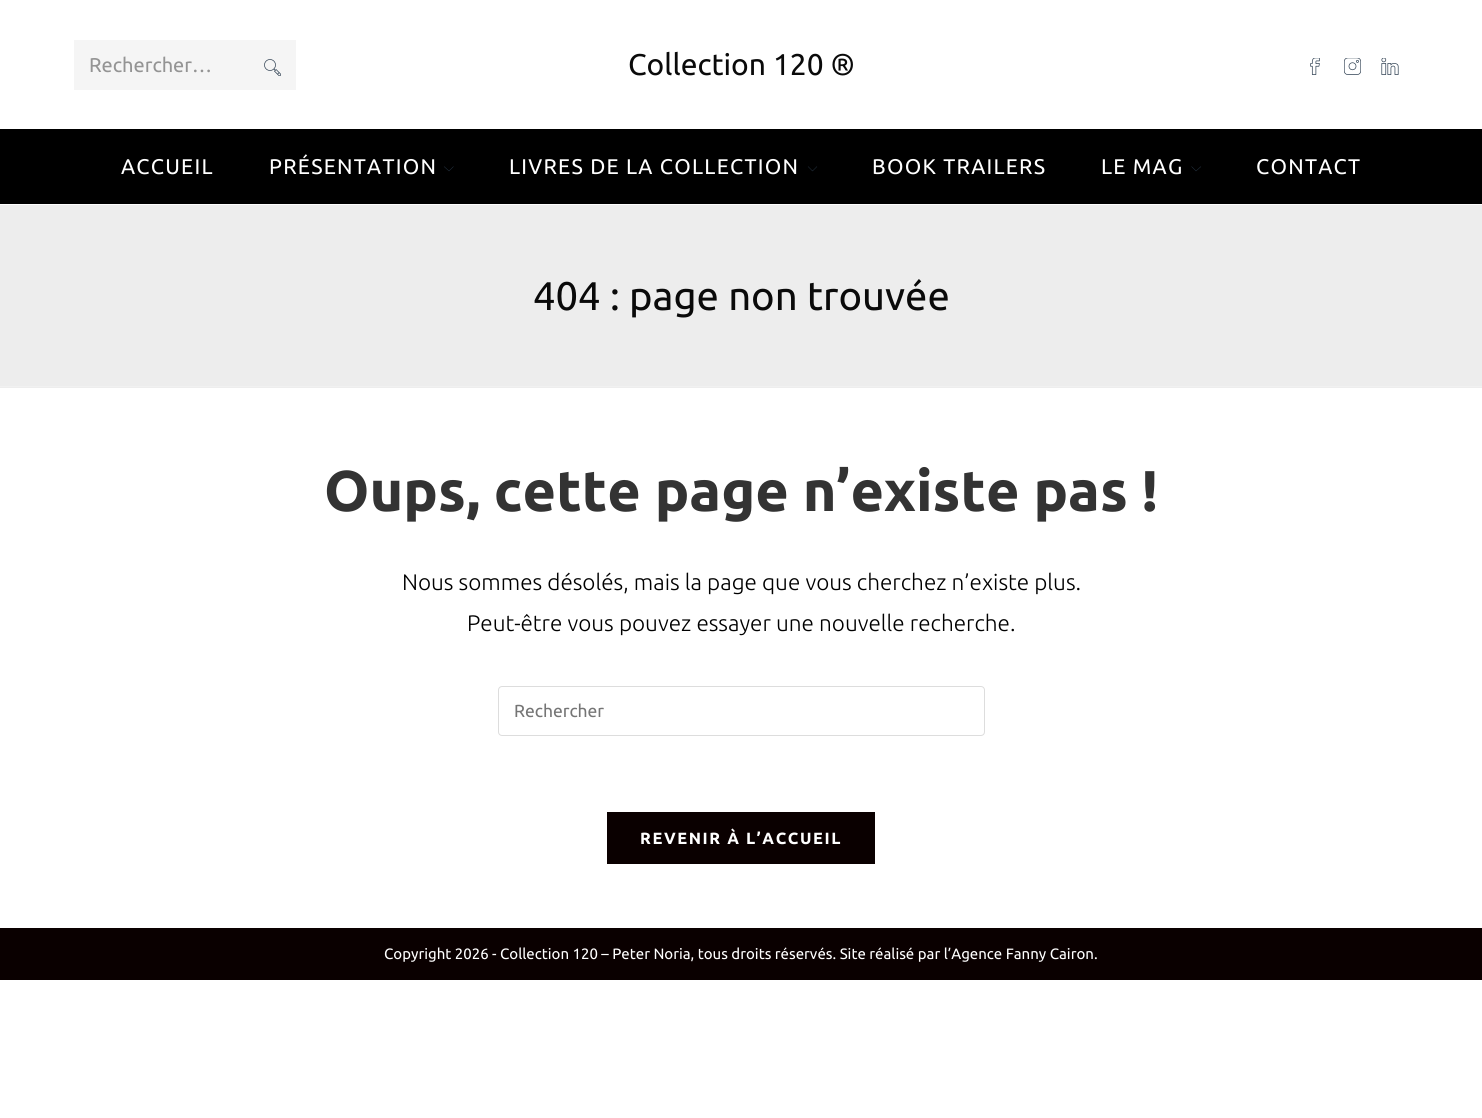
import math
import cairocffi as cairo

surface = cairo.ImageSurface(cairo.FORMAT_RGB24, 1482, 1118)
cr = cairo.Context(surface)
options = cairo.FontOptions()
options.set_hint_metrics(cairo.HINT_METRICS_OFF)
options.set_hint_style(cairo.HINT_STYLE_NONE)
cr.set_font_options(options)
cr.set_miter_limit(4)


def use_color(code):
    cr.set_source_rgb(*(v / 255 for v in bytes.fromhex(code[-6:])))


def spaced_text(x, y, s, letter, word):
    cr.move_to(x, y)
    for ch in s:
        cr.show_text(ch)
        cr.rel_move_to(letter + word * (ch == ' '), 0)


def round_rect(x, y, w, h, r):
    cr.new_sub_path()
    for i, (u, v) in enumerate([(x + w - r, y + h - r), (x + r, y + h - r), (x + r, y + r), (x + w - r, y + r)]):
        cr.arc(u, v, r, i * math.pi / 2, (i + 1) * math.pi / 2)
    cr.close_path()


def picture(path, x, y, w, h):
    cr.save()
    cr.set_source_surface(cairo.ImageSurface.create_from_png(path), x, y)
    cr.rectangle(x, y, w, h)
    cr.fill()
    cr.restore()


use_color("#ffffff")
cr.paint()
use_color("#f5f5f5")
cr.rectangle(74, 40, 222, 50)
cr.fill()
cr.select_font_face("Ubuntu")
cr.set_font_size(20)
use_color("#949494")
cr.move_to(89, 72)
cr.show_text("Rechercher…")
picture("img1.png", 264, 59, 17, 17)
cr.set_font_size(30)
use_color("#0a0a0a")
cr.move_to(628, 75)
cr.show_text("Collection 120 ®")
picture("img2.png", 1310, 58, 10, 17)
picture("img3.png", 1344, 58, 17, 17)
picture("img4.png", 1381, 58, 18, 17)
use_color("#000000")
cr.rectangle(0, 129, 1482, 75)
cr.fill()
cr.set_font_size(21.25)
use_color("#ffffff")
spaced_text(121, 174, "ACCUEIL", 1.25, 0)
spaced_text(269, 174, "PRÉSENTATION", 1.25, 0)
cr.new_path()
cr.move_to(453.5, 166.5)
cr.line_to(449, 171)
cr.line_to(444, 166.5)
use_color("#2d3e50")
cr.set_line_width(0.4)
cr.stroke()
use_color("#ffffff")
spaced_text(509, 174, "LIVRES DE LA COLLECTION", 1.25, 0)
cr.new_path()
cr.move_to(817, 166.5)
cr.line_to(812.5, 171)
cr.line_to(808, 166.5)
use_color("#2d3e50")
cr.stroke()
use_color("#ffffff")
spaced_text(872, 174, "BOOK TRAILERS", 1.25, 0)
spaced_text(1101, 174, "LE MAG", 1.25, 0)
cr.new_path()
cr.move_to(1201, 166.5)
cr.line_to(1196, 171)
cr.line_to(1191.5, 166.5)
use_color("#2d3e50")
cr.stroke()
use_color("#ffffff")
spaced_text(1256, 174, "CONTACT", 1.25, 0)
use_color("#ededed")
cr.rectangle(0, 205, 1482, 183)
cr.fill()
use_color("#f1f1f1")
cr.rectangle(0, 386, 1482, 1)
cr.fill()
cr.set_font_size(40)
use_color("#0a0a0a")
cr.move_to(533, 310)
cr.show_text("404 : page non trouvée")
cr.select_font_face("Ubuntu", cairo.FONT_SLANT_NORMAL, cairo.FONT_WEIGHT_BOLD)
cr.set_font_size(57.5)
use_color("#333333")
cr.move_to(324, 511)
cr.show_text("Oups, cette page n’existe pas !")
cr.select_font_face("Ubuntu Light")
cr.set_font_size(22.5)
use_color("#000000")
cr.move_to(402, 590)
cr.show_text("Nous sommes désolés, mais la page que vous cherchez n’existe plus.")
cr.move_to(467, 631)
cr.show_text("Peut-être vous pouvez essayer une nouvelle recherche.")
round_rect(498.5, 686.5, 486, 49, 3.5)
use_color("#dddddd")
cr.set_line_width(1)
cr.stroke()
cr.select_font_face("Ubuntu")
cr.set_font_size(17.5)
use_color("#757575")
cr.move_to(514, 717)
cr.show_text("Rechercher")
use_color("#0a0000")
cr.rectangle(607, 812, 268, 52)
cr.fill()
cr.select_font_face("Ubuntu", cairo.FONT_SLANT_NORMAL, cairo.FONT_WEIGHT_BOLD)
cr.set_font_size(16.25)
use_color("#ffffff")
spaced_text(640, 844, "REVENIR À L’ACCUEIL", 1.6, 0)
use_color("#0a0000")
cr.rectangle(0, 928, 1482, 52)
cr.fill()
cr.select_font_face("Ubuntu")
cr.set_font_size(15)
use_color("#ffffff")
cr.move_to(384, 959)
cr.show_text("Copyright 2026 - Collection 120 – Peter Noria, tous droits réservés. Site réalisé par l’Agence Fanny Cairon.")
surface.write_to_png("result.png")
